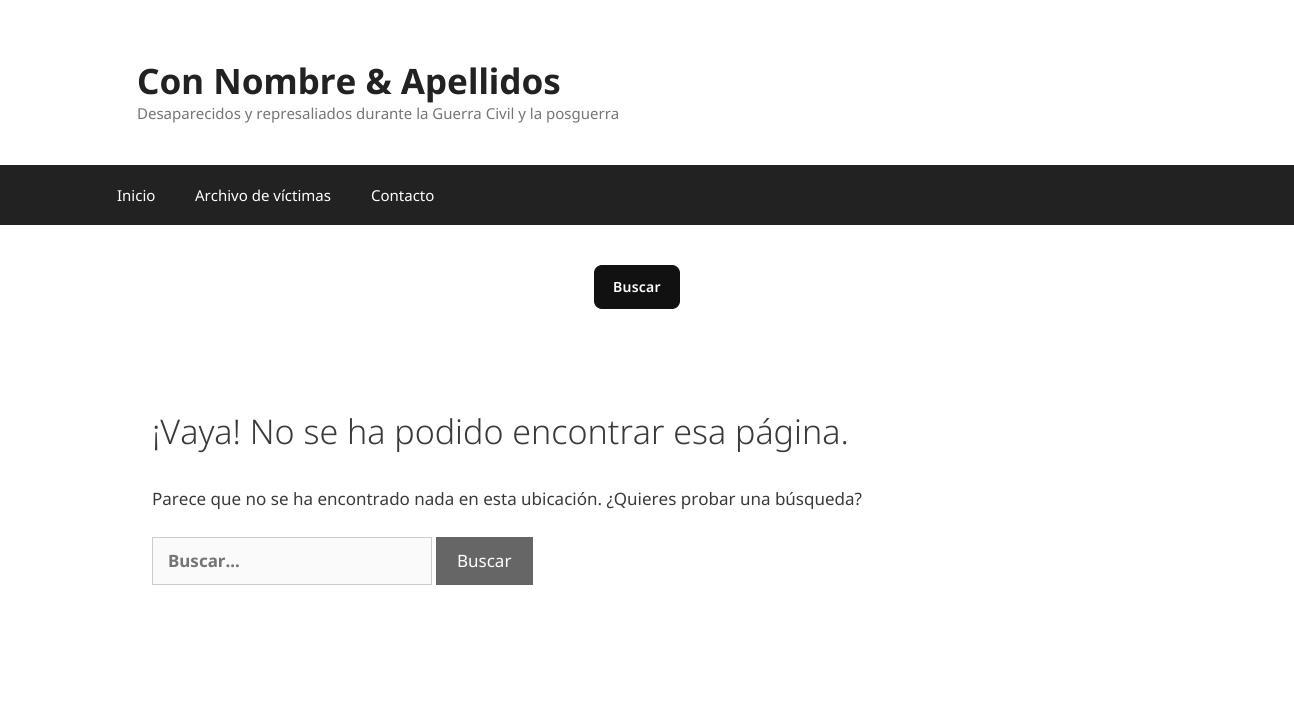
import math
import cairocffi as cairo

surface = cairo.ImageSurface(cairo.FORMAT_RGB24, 1294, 702)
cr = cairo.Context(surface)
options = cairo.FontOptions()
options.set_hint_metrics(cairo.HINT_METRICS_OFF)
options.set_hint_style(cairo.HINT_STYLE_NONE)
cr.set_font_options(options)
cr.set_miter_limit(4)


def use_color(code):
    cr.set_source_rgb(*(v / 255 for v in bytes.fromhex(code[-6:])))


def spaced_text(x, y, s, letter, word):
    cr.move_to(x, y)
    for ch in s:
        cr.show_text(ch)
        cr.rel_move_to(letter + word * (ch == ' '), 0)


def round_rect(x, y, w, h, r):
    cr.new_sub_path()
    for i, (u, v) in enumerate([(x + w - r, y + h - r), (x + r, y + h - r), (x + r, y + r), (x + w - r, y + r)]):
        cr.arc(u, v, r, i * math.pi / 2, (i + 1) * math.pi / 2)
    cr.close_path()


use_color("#ffffff")
cr.paint()
cr.select_font_face("Noto Sans", cairo.FONT_SLANT_NORMAL, cairo.FONT_WEIGHT_BOLD)
cr.set_font_size(35)
use_color("#222222")
cr.move_to(137, 94)
cr.show_text("Con Nombre & Apellidos")
cr.select_font_face("Noto Sans")
cr.set_font_size(15)
use_color("#757575")
cr.move_to(137, 119)
cr.show_text("Desaparecidos y represaliados durante la Guerra Civil y la posguerra")
use_color("#222222")
cr.rectangle(0, 165, 1294, 60)
cr.fill()
use_color("#ffffff")
cr.move_to(117, 201)
cr.show_text("Inicio")
cr.move_to(195, 201)
cr.show_text("Archivo de víctimas")
cr.move_to(371, 201)
cr.show_text("Contacto")
use_color("#111111")
round_rect(594.5, 265.5, 85, 43, 7.5)
cr.fill_preserve()
cr.set_line_width(1)
cr.stroke()
cr.select_font_face("Noto Sans SemiBold")
cr.set_font_size(14)
use_color("#ffffff")
spaced_text(613, 292, "Buscar", 0.25, 0)
cr.select_font_face("Noto Sans Light")
cr.set_font_size(34)
use_color("#3a3a3a")
cr.move_to(152, 444)
cr.show_text("¡Vaya! No se ha podido encontrar esa página.")
cr.select_font_face("Noto Sans")
cr.set_font_size(17)
cr.move_to(152, 505)
cr.show_text("Parece que no se ha encontrado nada en esta ubicación. ¿Quieres probar una búsqueda?")
use_color("#fafafa")
cr.rectangle(152.5, 537.5, 279, 47)
cr.fill_preserve()
use_color("#cccccc")
cr.stroke()
cr.select_font_face("Noto Sans", cairo.FONT_SLANT_NORMAL, cairo.FONT_WEIGHT_BOLD)
use_color("#757575")
cr.move_to(168, 567)
cr.show_text("Buscar...")
use_color("#666666")
cr.rectangle(436, 537, 97, 48)
cr.fill()
cr.select_font_face("Noto Sans")
use_color("#ffffff")
cr.move_to(457, 567)
cr.show_text("Buscar")
surface.write_to_png("result.png")
